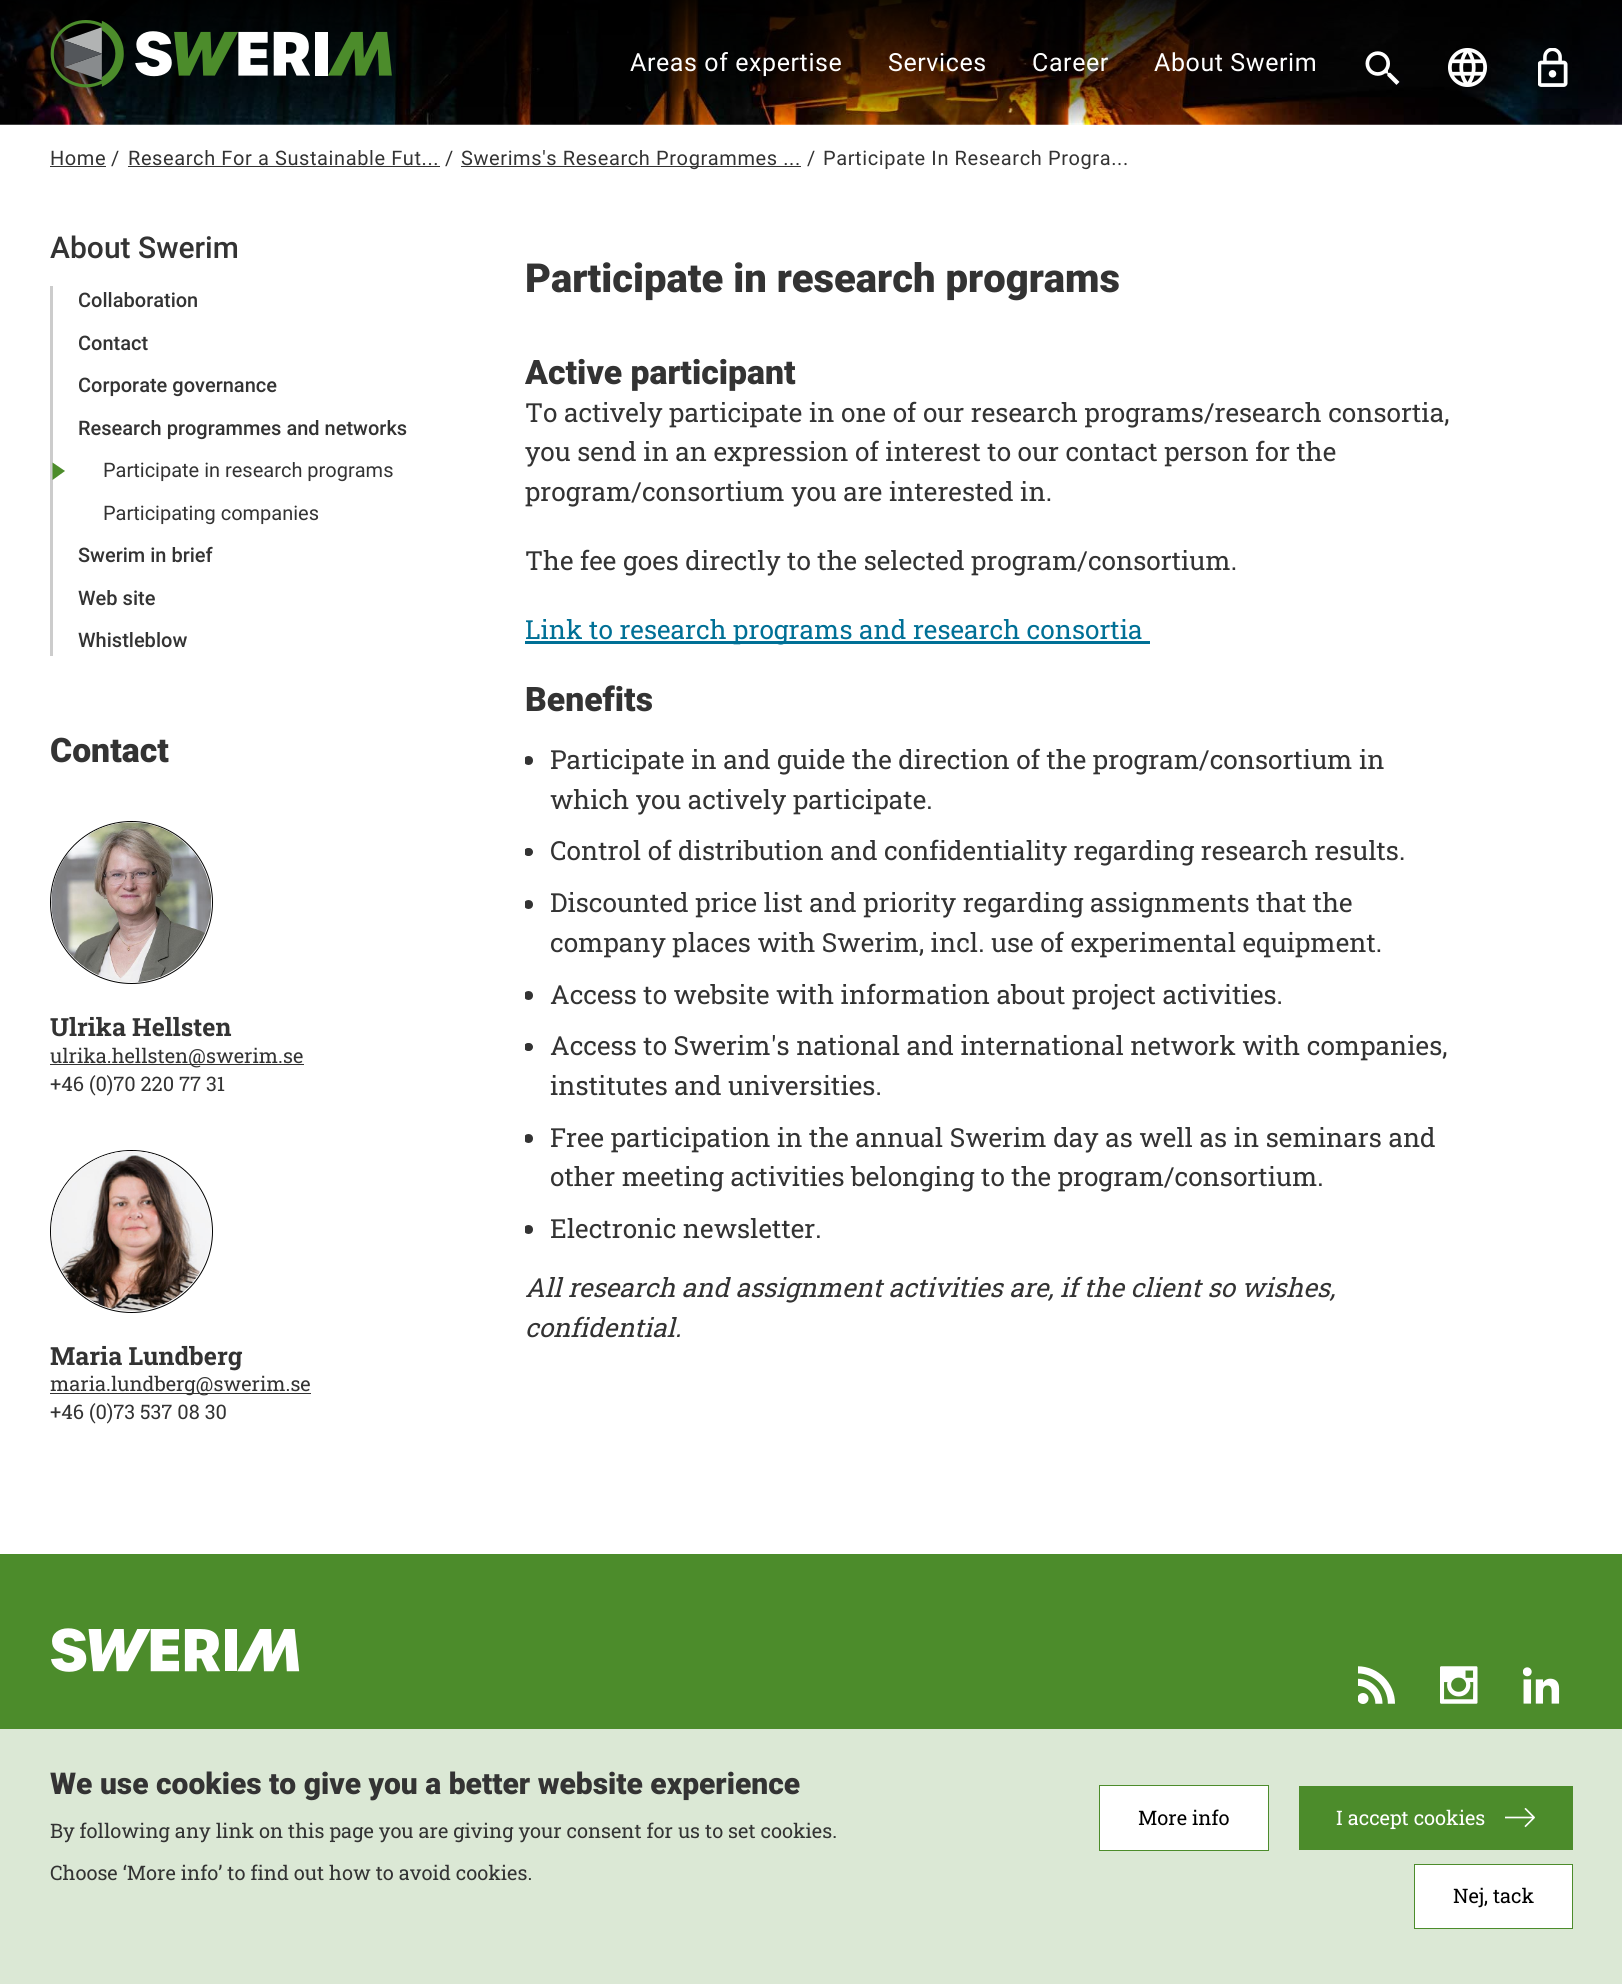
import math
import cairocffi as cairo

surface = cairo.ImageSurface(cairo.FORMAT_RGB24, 1622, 1984)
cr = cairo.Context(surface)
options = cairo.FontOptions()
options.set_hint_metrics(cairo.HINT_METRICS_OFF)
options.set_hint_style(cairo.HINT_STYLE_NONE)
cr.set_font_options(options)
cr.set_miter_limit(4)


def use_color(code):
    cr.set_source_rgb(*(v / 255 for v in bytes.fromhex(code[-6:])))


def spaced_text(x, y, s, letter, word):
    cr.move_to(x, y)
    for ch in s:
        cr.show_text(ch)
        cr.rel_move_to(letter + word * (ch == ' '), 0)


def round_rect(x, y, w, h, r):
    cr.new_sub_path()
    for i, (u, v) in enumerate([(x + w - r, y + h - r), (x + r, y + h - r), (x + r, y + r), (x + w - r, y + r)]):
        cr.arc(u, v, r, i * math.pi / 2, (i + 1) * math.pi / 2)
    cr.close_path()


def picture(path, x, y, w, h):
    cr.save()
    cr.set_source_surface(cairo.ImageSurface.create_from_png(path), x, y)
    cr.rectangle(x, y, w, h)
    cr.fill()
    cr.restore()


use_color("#ffffff")
cr.paint()
picture("img1.png", 0, 0, 1622, 125)
gradient = cairo.LinearGradient(811, 125, 811, -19)
gradient.add_color_stop_rgba(0, 0, 0, 0, 0)
gradient.add_color_stop_rgba(0.25, 0, 0, 0, 0.5)
gradient.add_color_stop_rgba(1, 0, 0, 0, 1)
cr.set_source(gradient)
cr.rectangle(0, 0, 1622, 123)
cr.fill()
picture("img2.png", 50, 20, 342, 68)
cr.select_font_face("Roboto")
cr.set_font_size(25)
use_color("#ffffff")
spaced_text(630, 71, "Areas of expertise", 0.6, 0)
spaced_text(888, 71, "Services", 0.6, 0)
spaced_text(1032, 71, "Career", 0.6, 0)
spaced_text(1154, 71, "About Swerim", 0.6, 0)
picture("img3.png", 1365, 51, 35, 34)
picture("img4.png", 1448, 48, 39, 39)
picture("img5.png", 1538, 48, 30, 39)
cr.set_font_size(20)
use_color("#333333")
spaced_text(50, 165, "Home", 0.6, 0)
cr.rectangle(50, 166, 56, 1)
cr.fill()
spaced_text(111, 165, "/", 0.6, 0)
spaced_text(128, 165, "Research For a Sustainable Fut...", 0.6, 0)
cr.rectangle(128, 166, 312, 1)
cr.fill()
spaced_text(445, 165, "/", 0.6, 0)
cr.rectangle(461, 166, 340, 1)
cr.fill()
spaced_text(461, 165, "Swerims's Research Programmes ...", 0.6, 0)
spaced_text(807, 165, "/", 0.6, 0)
spaced_text(823, 165, "Participate In Research Progra...", 0.6, 0)
cr.select_font_face("Roboto Medium")
cr.set_font_size(30)
cr.move_to(50, 258)
cr.show_text("About Swerim")
use_color("#cccccc")
cr.rectangle(50, 286, 3, 158)
cr.fill()
cr.set_font_size(20)
use_color("#333333")
cr.move_to(78, 307)
cr.show_text("Collaboration")
cr.move_to(78, 350)
cr.show_text("Contact")
cr.move_to(78, 392)
cr.show_text("Corporate governance")
cr.move_to(78, 435)
cr.show_text("Research programmes and networks")
use_color("#cccccc")
cr.rectangle(50, 444, 3, 212)
cr.fill()
use_color("#4c8c2b")
cr.new_path()
cr.move_to(52.5, 480)
cr.line_to(52.5, 462.5)
cr.line_to(65, 471)
cr.close_path()
cr.fill()
cr.select_font_face("Roboto")
use_color("#333333")
cr.move_to(103, 477)
cr.show_text("Participate in research programs")
cr.move_to(103, 520)
cr.show_text("Participating companies")
cr.select_font_face("Roboto Medium")
cr.move_to(78, 562)
cr.show_text("Swerim in brief")
cr.move_to(78, 605)
cr.show_text("Web site")
cr.move_to(78, 647)
cr.show_text("Whistleblow")
cr.select_font_face("Roboto Black")
cr.set_font_size(33.75)
cr.move_to(50, 762)
cr.show_text("Contact")
cr.new_path()
cr.arc(131.5, 902.5, 81, 0, 2 * math.pi)
use_color("#000000")
cr.set_line_width(1)
cr.stroke()
picture("img6.png", 51, 822, 161, 160)
cr.select_font_face("Roboto Slab", cairo.FONT_SLANT_NORMAL, cairo.FONT_WEIGHT_BOLD)
cr.set_font_size(25)
use_color("#333333")
cr.move_to(50, 1036)
cr.show_text("Ulrika Hellsten")
cr.rectangle(50, 1064, 254, 1)
cr.fill()
cr.select_font_face("Roboto Slab")
cr.set_font_size(20)
cr.move_to(50, 1063)
cr.show_text("ulrika.hellsten@swerim.se")
cr.move_to(50, 1091)
cr.show_text("+46 (0)70 220 77 31")
cr.new_path()
cr.arc(131.5, 1231.5, 81, 0, 2 * math.pi)
use_color("#000000")
cr.stroke()
picture("img7.png", 51, 1151, 160, 160)
cr.select_font_face("Roboto Slab", cairo.FONT_SLANT_NORMAL, cairo.FONT_WEIGHT_BOLD)
cr.set_font_size(25)
use_color("#333333")
cr.move_to(50, 1365)
cr.show_text("Maria Lundberg")
cr.rectangle(50, 1393, 261, 1)
cr.fill()
cr.select_font_face("Roboto Slab")
cr.set_font_size(20)
cr.move_to(50, 1391)
cr.show_text("maria.lundberg@swerim.se")
cr.move_to(50, 1419)
cr.show_text("+46 (0)73 537 08 30")
cr.select_font_face("Roboto Black")
cr.set_font_size(40)
cr.move_to(525, 292)
cr.show_text("Participate in research programs")
cr.set_font_size(33.75)
cr.move_to(525, 384)
cr.show_text("Active participant")
cr.select_font_face("Roboto Slab")
cr.set_font_size(26.25)
cr.move_to(525, 422)
cr.show_text("To actively participate in one of our research programs/research consortia,")
cr.move_to(525, 461)
cr.show_text("you send in an expression of interest to our contact person for the")
cr.move_to(525, 501)
cr.show_text("program/consortium you are interested in.")
cr.move_to(525, 570)
cr.show_text("The fee goes directly to the selected program/consortium.")
use_color("#007096")
cr.rectangle(525, 641, 625, 3)
cr.fill()
cr.move_to(525, 639)
cr.show_text("Link to research programs and research consortia")
cr.select_font_face("Roboto Black")
cr.set_font_size(33.75)
use_color("#333333")
cr.move_to(525, 711)
cr.show_text("Benefits")
cr.save()
cr.rectangle(525, 328, 940, 1088)
cr.clip()
cr.arc(528.5, 760.5, 4.5, 0, 2 * math.pi)
cr.fill()
cr.restore()
cr.select_font_face("Roboto Slab")
cr.set_font_size(26.25)
cr.move_to(550, 769)
cr.show_text("Participate in and guide the direction of the program/consortium in")
cr.move_to(550, 809)
cr.show_text("which you actively participate.")
cr.save()
cr.rectangle(525, 328, 940, 1088)
cr.clip()
round_rect(524, 848, 9, 8, 4)
cr.fill()
cr.restore()
cr.move_to(550, 860)
cr.show_text("Control of distribution and confidentiality regarding research results.")
cr.save()
cr.rectangle(525, 328, 940, 1088)
cr.clip()
cr.arc(528.5, 904.5, 4.5, 0, 2 * math.pi)
cr.fill()
cr.restore()
cr.move_to(550, 912)
cr.show_text("Discounted price list and priority regarding assignments that the")
cr.move_to(550, 952)
cr.show_text("company places with Swerim, incl. use of experimental equipment.")
cr.save()
cr.rectangle(525, 328, 940, 1088)
cr.clip()
cr.arc(528.5, 995.5, 4.5, 0, 2 * math.pi)
cr.fill()
cr.restore()
cr.move_to(550, 1004)
cr.show_text("Access to website with information about project activities.")
cr.save()
cr.rectangle(525, 328, 940, 1088)
cr.clip()
round_rect(524, 1043, 9, 8, 4)
cr.fill()
cr.restore()
cr.move_to(550, 1055)
cr.show_text("Access to Swerim's national and international network with companies,")
cr.move_to(550, 1095)
cr.show_text("institutes and universities.")
cr.save()
cr.rectangle(525, 328, 940, 1088)
cr.clip()
cr.arc(528.5, 1138.5, 4.5, 0, 2 * math.pi)
cr.fill()
cr.restore()
cr.move_to(550, 1147)
cr.show_text("Free participation in the annual Swerim day as well as in seminars and")
cr.move_to(550, 1186)
cr.show_text("other meeting activities belonging to the program/consortium.")
cr.save()
cr.rectangle(525, 328, 940, 1088)
cr.clip()
cr.arc(528.5, 1229.5, 4.5, 0, 2 * math.pi)
cr.fill()
cr.restore()
cr.move_to(550, 1238)
cr.show_text("Electronic newsletter.")
cr.select_font_face("Roboto Slab", cairo.FONT_SLANT_ITALIC)
cr.move_to(525, 1297)
cr.show_text("All research and assignment activities are, if the client so wishes,")
cr.move_to(525, 1337)
cr.show_text("confidential.")
use_color("#4c8c2b")
cr.rectangle(0, 1554, 1622, 175)
cr.fill()
picture("img8.png", 51, 1628, 249, 44)
picture("img9.png", 1358, 1666, 37, 38)
picture("img10.png", 1440, 1666, 38, 38)
picture("img11.png", 1523, 1667, 37, 37)
use_color("#dbe8d5")
cr.rectangle(0, 1729, 1622, 255)
cr.fill()
cr.select_font_face("Roboto Black")
cr.set_font_size(30)
use_color("#333333")
cr.move_to(50, 1794)
cr.show_text("We use cookies to give you a better website experience")
cr.select_font_face("Roboto Slab")
cr.set_font_size(20)
cr.move_to(50, 1838)
cr.show_text("By following any link on this page you are giving your consent for us to set cookies.")
cr.move_to(50, 1880)
cr.show_text("Choose ‘More info’ to find out how to avoid cookies.")
use_color("#ffffff")
cr.rectangle(1099.5, 1785.5, 169, 65)
cr.fill_preserve()
use_color("#4c8c2b")
cr.stroke()
use_color("#000000")
cr.move_to(1138, 1825)
cr.show_text("More info")
use_color("#4c8c2b")
cr.rectangle(1299, 1786, 274, 64)
cr.fill()
use_color("#ffffff")
cr.move_to(1336, 1825)
cr.show_text("I accept cookies")
picture("img12.png", 1505, 1808, 30, 20)
cr.rectangle(1414.5, 1864.5, 158, 64)
cr.fill_preserve()
use_color("#4c8c2b")
cr.stroke()
use_color("#000000")
cr.move_to(1453, 1903)
cr.show_text("Nej, tack")
surface.write_to_png("result.png")
